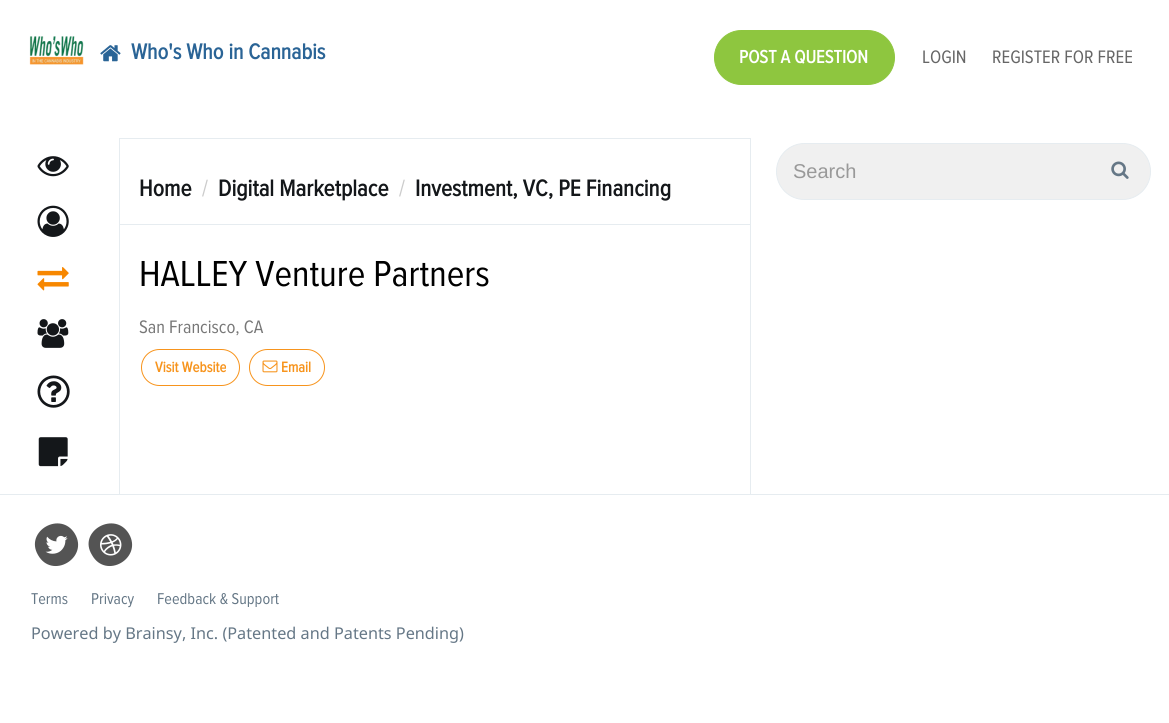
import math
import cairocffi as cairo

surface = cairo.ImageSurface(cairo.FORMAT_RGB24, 1169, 723)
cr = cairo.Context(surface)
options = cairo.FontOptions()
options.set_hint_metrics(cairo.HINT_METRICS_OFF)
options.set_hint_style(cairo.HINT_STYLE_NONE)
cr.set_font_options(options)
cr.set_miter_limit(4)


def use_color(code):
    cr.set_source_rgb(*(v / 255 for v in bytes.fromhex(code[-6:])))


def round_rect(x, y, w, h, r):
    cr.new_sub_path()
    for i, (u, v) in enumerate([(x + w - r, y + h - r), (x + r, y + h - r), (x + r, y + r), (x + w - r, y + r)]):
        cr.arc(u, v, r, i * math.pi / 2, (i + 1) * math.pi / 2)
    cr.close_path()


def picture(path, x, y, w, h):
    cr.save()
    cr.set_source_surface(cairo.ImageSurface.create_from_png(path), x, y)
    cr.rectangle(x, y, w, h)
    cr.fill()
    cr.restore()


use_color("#ffffff")
cr.paint()
picture("img1.png", 29, 36, 55, 29)
picture("img2.png", 100, 45, 21, 17)
cr.select_font_face("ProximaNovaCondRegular", cairo.FONT_SLANT_NORMAL, cairo.FONT_WEIGHT_BOLD)
cr.set_font_size(22.5)
use_color("#2a6496")
cr.move_to(131, 59)
cr.show_text("Who's Who in Cannabis")
use_color("#8ec63f")
round_rect(714.5, 30.5, 180, 54, 27)
cr.fill_preserve()
cr.set_line_width(1)
cr.stroke()
cr.set_font_size(18.75)
use_color("#ffffff")
cr.move_to(739, 63)
cr.show_text("POST A QUESTION")
cr.select_font_face("ProximaNovaCondRegular")
use_color("#666666")
cr.move_to(922, 63)
cr.show_text("LOGIN")
cr.move_to(992, 63)
cr.show_text("REGISTER FOR FREE")
picture("img3.png", 37, 156, 32, 21)
picture("img4.png", 37, 205, 32, 32)
picture("img5.png", 37, 267, 32, 24)
picture("img6.png", 37, 319, 32, 29)
picture("img7.png", 37, 375, 33, 33)
picture("img8.png", 38, 437, 30, 30)
use_color("#f0f0f0")
round_rect(776.5, 143.5, 374, 56, 28)
cr.fill_preserve()
use_color("#e6ecf0")
cr.stroke()
cr.select_font_face("Liberation Sans")
cr.set_font_size(20)
use_color("#999999")
cr.move_to(793, 178)
cr.show_text("Search")
picture("img9.png", 1111, 161, 18, 18)
use_color("#e6ecf0")
cr.rectangle(119, 138, 632, 1)
cr.fill()
cr.rectangle(750, 138, 1, 356)
cr.fill()
cr.rectangle(119, 138, 1, 356)
cr.fill()
cr.rectangle(120, 224, 630, 1)
cr.fill()
cr.select_font_face("ProximaNovaCondRegular", cairo.FONT_SLANT_NORMAL, cairo.FONT_WEIGHT_BOLD)
cr.set_font_size(23.75)
use_color("#14171a")
cr.move_to(139, 196)
cr.show_text("Home")
cr.select_font_face("ProximaNovaCondRegular")
use_color("#cccccc")
cr.move_to(202, 196)
cr.show_text("/")
cr.select_font_face("ProximaNovaCondRegular", cairo.FONT_SLANT_NORMAL, cairo.FONT_WEIGHT_BOLD)
use_color("#14171a")
cr.move_to(218, 196)
cr.show_text("Digital Marketplace")
cr.select_font_face("ProximaNovaCondRegular")
use_color("#cccccc")
cr.move_to(399, 196)
cr.show_text("/")
cr.select_font_face("ProximaNovaCondRegular", cairo.FONT_SLANT_NORMAL, cairo.FONT_WEIGHT_BOLD)
use_color("#14171a")
cr.move_to(415, 196)
cr.show_text("Investment, VC, PE Financing")
cr.select_font_face("ProximaNovaCondRegular")
cr.set_font_size(37.5)
use_color("#000000")
cr.move_to(139, 286)
cr.show_text("HALLEY Venture Partners")
cr.set_font_size(18.75)
use_color("#777777")
cr.move_to(139, 333)
cr.show_text("San Francisco, CA")
round_rect(141.5, 349.5, 98, 36, 18)
use_color("#f7941d")
cr.stroke()
cr.select_font_face("ProximaNovaCondRegular", cairo.FONT_SLANT_NORMAL, cairo.FONT_WEIGHT_BOLD)
cr.set_font_size(15)
cr.move_to(155, 372)
cr.show_text("Visit Website")
round_rect(249.5, 349.5, 75, 36, 18)
cr.stroke()
picture("img10.png", 262, 360, 16, 13)
cr.move_to(281, 372)
cr.show_text("Email")
use_color("#e6ecf0")
cr.rectangle(0, 494, 1169, 1)
cr.fill()
use_color("#545454")
cr.new_path()
cr.move_to(75, 534)
cr.curve_to(89, 558, 52, 580, 38, 555)
cr.curve_to(24, 531, 61, 510, 75, 534)
cr.close_path()
cr.fill()
picture("img11.png", 45, 535, 23, 19)
cr.new_path()
cr.move_to(129, 534)
cr.curve_to(143, 558, 106, 580, 92, 555)
cr.curve_to(77, 531, 115, 510, 129, 534)
cr.close_path()
cr.fill()
picture("img12.png", 100, 534, 22, 22)
cr.select_font_face("ProximaNovaCondRegular")
cr.set_font_size(16.25)
use_color("#657786")
cr.move_to(31, 604)
cr.show_text("Terms")
cr.move_to(91, 604)
cr.show_text("Privacy")
cr.move_to(157, 604)
cr.show_text("Feedback & Support")
cr.select_font_face("Noto Sans")
cr.move_to(31, 639)
cr.show_text("Powered by Brainsy, Inc. (Patented and Patents Pending)")
surface.write_to_png("result.png")
